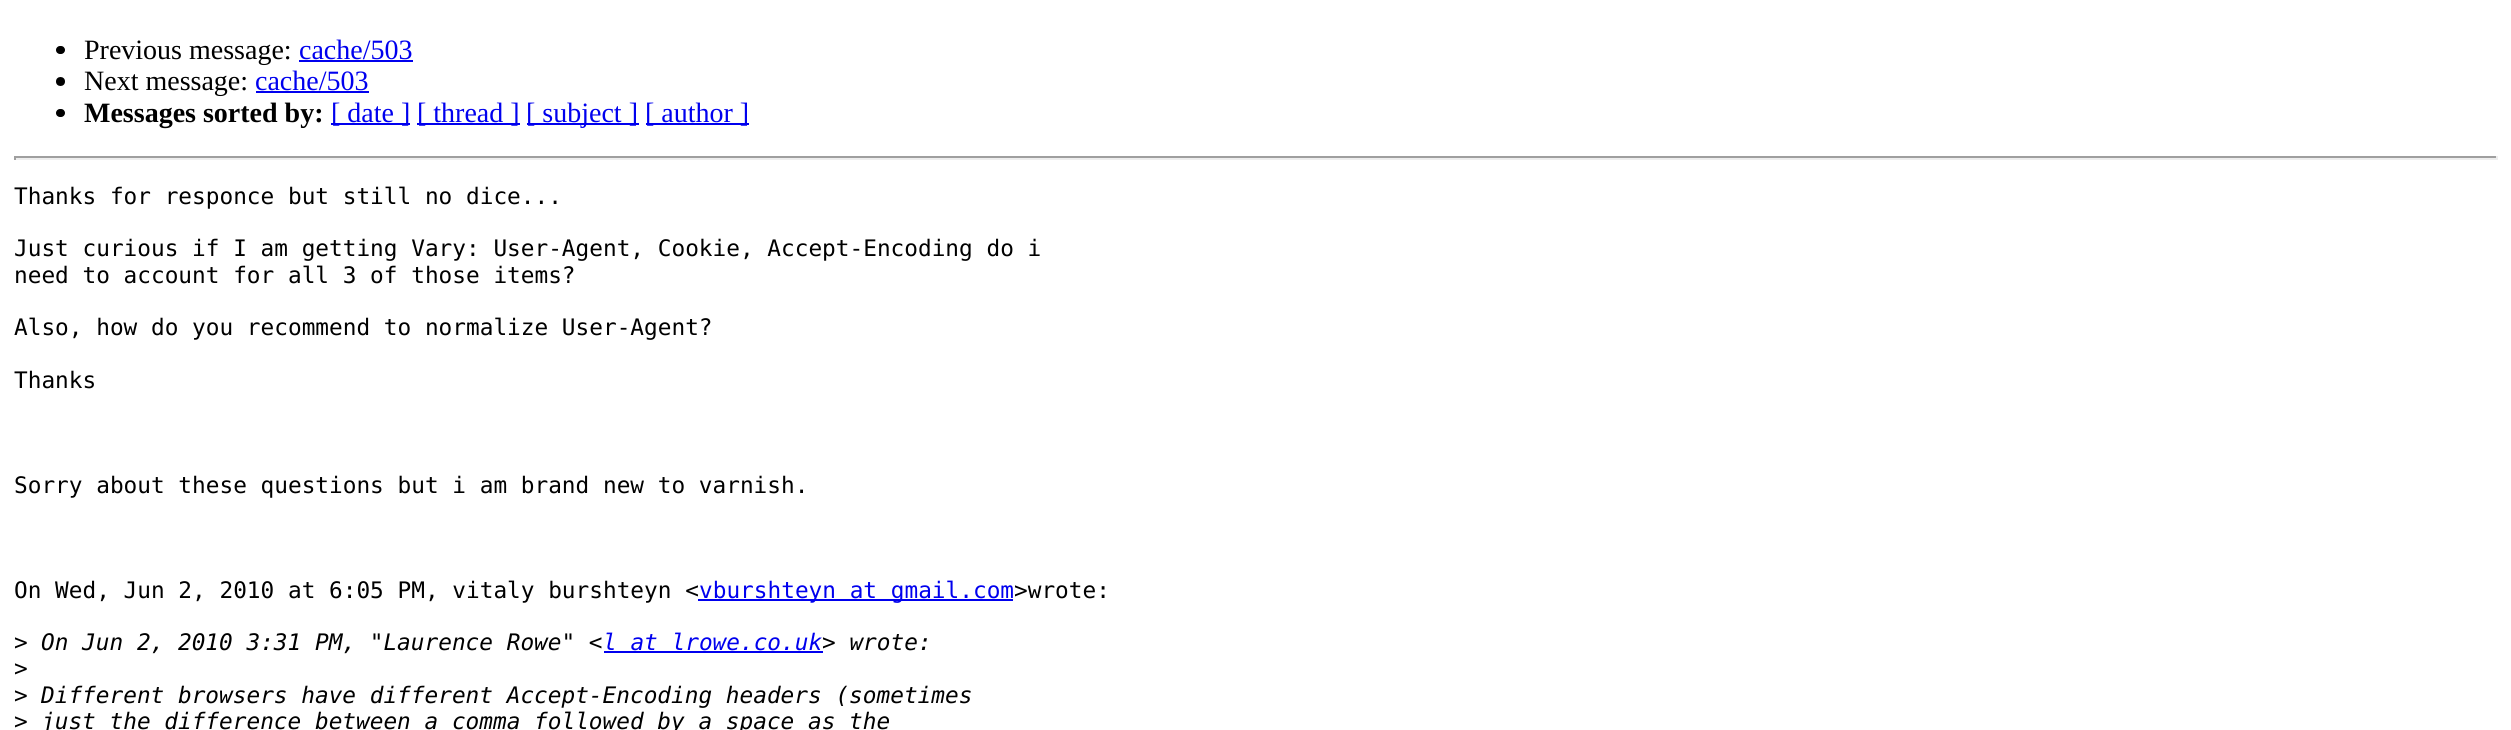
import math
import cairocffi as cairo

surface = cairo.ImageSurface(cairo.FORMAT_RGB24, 2511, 730)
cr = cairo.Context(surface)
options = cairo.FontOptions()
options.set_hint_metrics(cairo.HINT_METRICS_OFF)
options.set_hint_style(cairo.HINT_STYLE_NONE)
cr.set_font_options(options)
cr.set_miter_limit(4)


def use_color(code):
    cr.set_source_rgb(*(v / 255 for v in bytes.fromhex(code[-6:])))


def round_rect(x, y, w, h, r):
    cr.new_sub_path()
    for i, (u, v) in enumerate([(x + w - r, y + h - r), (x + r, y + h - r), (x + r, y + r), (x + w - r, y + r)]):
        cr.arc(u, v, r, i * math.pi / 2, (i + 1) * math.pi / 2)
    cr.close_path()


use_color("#ffffff")
cr.paint()
use_color("#000000")
round_rect(56, 46, 9, 8, 4)
cr.fill()
cr.select_font_face("Liberation Serif")
cr.set_font_size(28)
cr.move_to(84, 59)
cr.show_text("Previous message:")
use_color("#0000ee")
cr.move_to(299, 59)
cr.show_text("cache/503")
cr.rectangle(299, 60, 114, 2)
cr.fill()
use_color("#000000")
cr.arc(60.5, 81.5, 4.5, 0, 2 * math.pi)
cr.fill()
cr.move_to(84, 90)
cr.show_text("Next message:")
use_color("#0000ee")
cr.move_to(255, 90)
cr.show_text("cache/503")
cr.rectangle(256, 91, 113, 2)
cr.fill()
use_color("#000000")
round_rect(56, 109, 9, 8, 4)
cr.fill()
cr.select_font_face("Liberation Serif", cairo.FONT_SLANT_NORMAL, cairo.FONT_WEIGHT_BOLD)
cr.move_to(84, 122)
cr.show_text("Messages sorted by:")
use_color("#0000ee")
cr.rectangle(331, 123, 79, 2)
cr.fill()
cr.select_font_face("Liberation Serif")
cr.move_to(331, 122)
cr.show_text("[ date ]")
cr.rectangle(417, 123, 103, 2)
cr.fill()
cr.move_to(417, 122)
cr.show_text("[ thread ]")
cr.rectangle(527, 123, 112, 2)
cr.fill()
cr.move_to(526, 122)
cr.show_text("[ subject ]")
cr.rectangle(646, 123, 103, 2)
cr.fill()
cr.move_to(645, 122)
cr.show_text("[ author ]")
use_color("#9f9f9f")
cr.rectangle(14, 156, 2483, 2)
cr.fill()
use_color("#eeeeee")
cr.rectangle(2496, 156, 2, 4)
cr.fill()
cr.rectangle(14, 158, 2483, 2)
cr.fill()
use_color("#9f9f9f")
cr.rectangle(14, 156, 2, 4)
cr.fill()
cr.select_font_face("DejaVu Sans Mono")
cr.set_font_size(22.75)
use_color("#000000")
cr.move_to(14, 204)
cr.show_text("Thanks for responce but still no dice...")
cr.move_to(14, 256)
cr.show_text("Just curious if I am getting Vary: User-Agent, Cookie, Accept-Encoding do i")
cr.move_to(14, 283)
cr.show_text("need to account for all 3 of those items?")
cr.move_to(14, 335)
cr.show_text("Also, how do you recommend to normalize User-Agent?")
cr.move_to(14, 388)
cr.show_text("Thanks")
cr.move_to(14, 493)
cr.show_text("Sorry about these questions but i am brand new to varnish.")
cr.move_to(14, 598)
cr.show_text("On Wed, Jun 2, 2010 at 6:05 PM, vitaly burshteyn <")
use_color("#0000ee")
cr.rectangle(698, 599, 315, 2)
cr.fill()
cr.move_to(699, 598)
cr.show_text("vburshteyn at gmail.com")
use_color("#000000")
cr.move_to(1014, 598)
cr.show_text(">wrote:")
cr.move_to(14, 650)
cr.show_text(">")
cr.select_font_face("DejaVu Sans Mono", cairo.FONT_SLANT_ITALIC)
cr.move_to(41, 650)
cr.show_text("On Jun 2, 2010 3:31 PM, \"Laurence Rowe\" <")
use_color("#0000ee")
cr.rectangle(604, 651, 219, 2)
cr.fill()
cr.move_to(603, 650)
cr.show_text("l at lrowe.co.uk")
use_color("#000000")
cr.move_to(822, 650)
cr.show_text("> wrote:")
cr.select_font_face("DejaVu Sans Mono")
cr.move_to(14, 676)
cr.show_text(">")
cr.move_to(14, 703)
cr.show_text(">")
cr.select_font_face("DejaVu Sans Mono", cairo.FONT_SLANT_ITALIC)
cr.move_to(41, 703)
cr.show_text("Different browsers have different Accept-Encoding headers (sometimes")
cr.select_font_face("DejaVu Sans Mono")
cr.move_to(14, 729)
cr.show_text(">")
cr.select_font_face("DejaVu Sans Mono", cairo.FONT_SLANT_ITALIC)
cr.move_to(41, 729)
cr.show_text("just the difference between a comma followed by a space as the")
surface.write_to_png("result.png")
